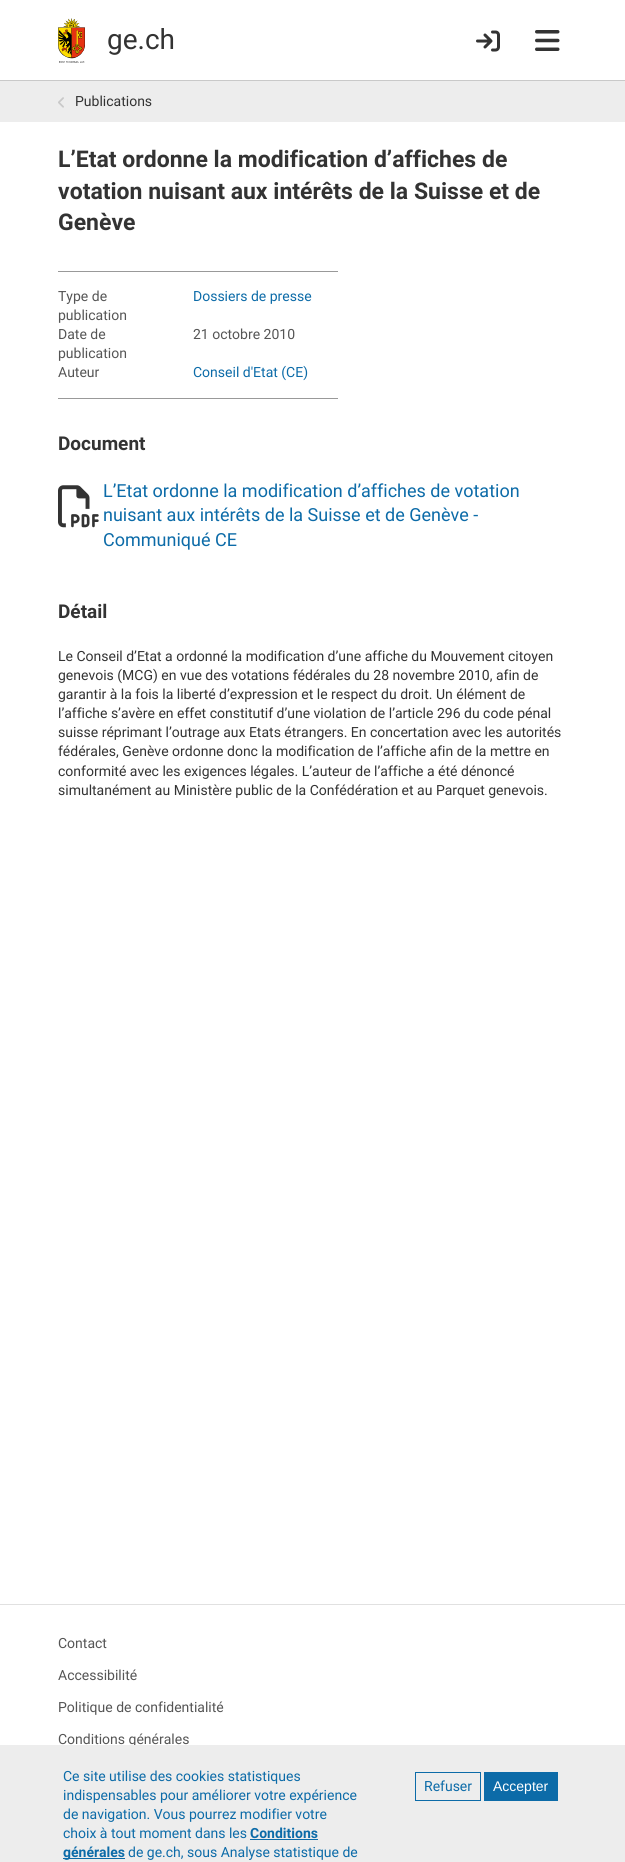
import math
import cairocffi as cairo

surface = cairo.ImageSurface(cairo.FORMAT_RGB24, 625, 1862)
cr = cairo.Context(surface)
options = cairo.FontOptions()
options.set_hint_metrics(cairo.HINT_METRICS_OFF)
options.set_hint_style(cairo.HINT_STYLE_NONE)
cr.set_font_options(options)
cr.set_miter_limit(4)


def use_color(code):
    cr.set_source_rgb(*(v / 255 for v in bytes.fromhex(code[-6:])))


def picture(path, x, y, w, h):
    cr.save()
    cr.set_source_surface(cairo.ImageSurface.create_from_png(path), x, y)
    cr.rectangle(x, y, w, h)
    cr.fill()
    cr.restore()


use_color("#ffffff")
cr.paint()
use_color("#c9c9c9")
cr.rectangle(0, 80, 625, 1)
cr.fill()
picture("img1.png", 58, 18, 27, 45)
cr.select_font_face("Roboto")
cr.set_font_size(28)
use_color("#333333")
cr.move_to(107, 49)
cr.show_text("ge.ch")
picture("img2.png", 476, 30, 24, 22)
picture("img3.png", 535, 30, 25, 21)
use_color("#ededed")
cr.rectangle(0, 81, 625, 41)
cr.fill()
picture("img4.png", 58, 97, 6, 11)
cr.set_font_size(14)
use_color("#333333")
cr.move_to(75, 106)
cr.show_text("Publications")
cr.select_font_face("Roboto", cairo.FONT_SLANT_NORMAL, cairo.FONT_WEIGHT_BOLD)
cr.set_font_size(23)
cr.move_to(58, 167)
cr.show_text("L’Etat ordonne la modification d’affiches de")
cr.move_to(58, 199)
cr.show_text("votation nuisant aux intérêts de la Suisse et de")
cr.move_to(58, 230)
cr.show_text("Genève")
use_color("#999999")
cr.rectangle(58, 271, 280, 1)
cr.fill()
cr.select_font_face("Roboto")
cr.set_font_size(14)
use_color("#555555")
cr.move_to(58, 301)
cr.show_text("Type de")
cr.move_to(58, 320)
cr.show_text("publication")
use_color("#0c6ba8")
cr.move_to(193, 301)
cr.show_text("Dossiers de presse")
use_color("#555555")
cr.move_to(58, 339)
cr.show_text("Date de")
cr.move_to(58, 358)
cr.show_text("publication")
cr.move_to(193, 339)
cr.show_text("21 octobre 2010")
cr.move_to(58, 377)
cr.show_text("Auteur")
use_color("#0c6ba8")
cr.move_to(193, 377)
cr.show_text("Conseil d'Etat (CE)")
use_color("#999999")
cr.rectangle(58, 398, 280, 1)
cr.fill()
cr.select_font_face("Roboto", cairo.FONT_SLANT_NORMAL, cairo.FONT_WEIGHT_BOLD)
cr.set_font_size(19)
use_color("#333333")
cr.move_to(58, 450)
cr.show_text("Document")
picture("img5.png", 58, 485, 41, 43)
cr.select_font_face("Roboto")
cr.set_font_size(18)
use_color("#0c6ba8")
cr.move_to(103, 497)
cr.show_text("L’Etat ordonne la modification d’affiches de votation")
cr.move_to(103, 521)
cr.show_text("nuisant aux intérêts de la Suisse et de Genève -")
cr.move_to(103, 546)
cr.show_text("Communiqué CE")
cr.select_font_face("Roboto", cairo.FONT_SLANT_NORMAL, cairo.FONT_WEIGHT_BOLD)
cr.set_font_size(19)
use_color("#333333")
cr.move_to(58, 618)
cr.show_text("Détail")
cr.select_font_face("Roboto")
cr.set_font_size(14)
cr.move_to(58, 661)
cr.show_text("Le Conseil d’Etat a ordonné la modification d’une affiche du Mouvement citoyen")
cr.move_to(58, 680)
cr.show_text("genevois (MCG) en vue des votations fédérales du 28 novembre 2010, afin de")
cr.move_to(58, 699)
cr.show_text("garantir à la fois la liberté d’expression et le respect du droit. Un élément de")
cr.move_to(58, 718)
cr.show_text("l’affiche s’avère en effet constitutif d’une violation de l’article 296 du code pénal")
cr.move_to(58, 737)
cr.show_text("suisse réprimant l’outrage aux Etats étrangers. En concertation avec les autorités")
cr.move_to(58, 756)
cr.show_text("fédérales, Genève ordonne donc la modification de l’affiche afin de la mettre en")
cr.move_to(58, 776)
cr.show_text("conformité avec les exigences légales. L’auteur de l’affiche a été dénoncé")
cr.move_to(58, 795)
cr.show_text("simultanément au Ministère public de la Confédération et au Parquet genevois.")
use_color("#e1e1e1")
cr.rectangle(0, 1604, 625, 1)
cr.fill()
use_color("#555555")
cr.move_to(58, 1648)
cr.show_text("Contact")
cr.move_to(58, 1680)
cr.show_text("Accessibilité")
cr.move_to(58, 1712)
cr.show_text("Politique de confidentialité")
cr.move_to(58, 1744)
cr.show_text("Conditions générales")
use_color("#ededed")
cr.rectangle(0, 1745, 625, 117)
cr.fill()
use_color("#0c6ba8")
cr.move_to(63, 1781)
cr.show_text("Ce site utilise des cookies statistiques")
cr.move_to(63, 1800)
cr.show_text("indispensables pour améliorer votre expérience")
cr.move_to(63, 1819)
cr.show_text("de navigation. Vous pourrez modifier votre")
cr.move_to(63, 1838)
cr.show_text("choix à tout moment dans les")
cr.select_font_face("Roboto", cairo.FONT_SLANT_NORMAL, cairo.FONT_WEIGHT_BOLD)
cr.move_to(250, 1838)
cr.show_text("Conditions")
cr.rectangle(250, 1839, 68, 1)
cr.fill()
cr.rectangle(63, 1858, 62, 1)
cr.fill()
cr.move_to(63, 1857)
cr.show_text("générales")
cr.select_font_face("Roboto")
cr.move_to(128, 1857)
cr.show_text("de ge.ch, sous Analyse statistique de")
cr.rectangle(415.5, 1772.5, 65, 28)
cr.set_line_width(1)
cr.stroke()
cr.move_to(424, 1791)
cr.show_text("Refuser")
cr.rectangle(484, 1772, 74, 29)
cr.fill()
cr.select_font_face("Liberation Sans")
use_color("#ffffff")
cr.move_to(493, 1791)
cr.show_text("Accepter")
surface.write_to_png("result.png")
